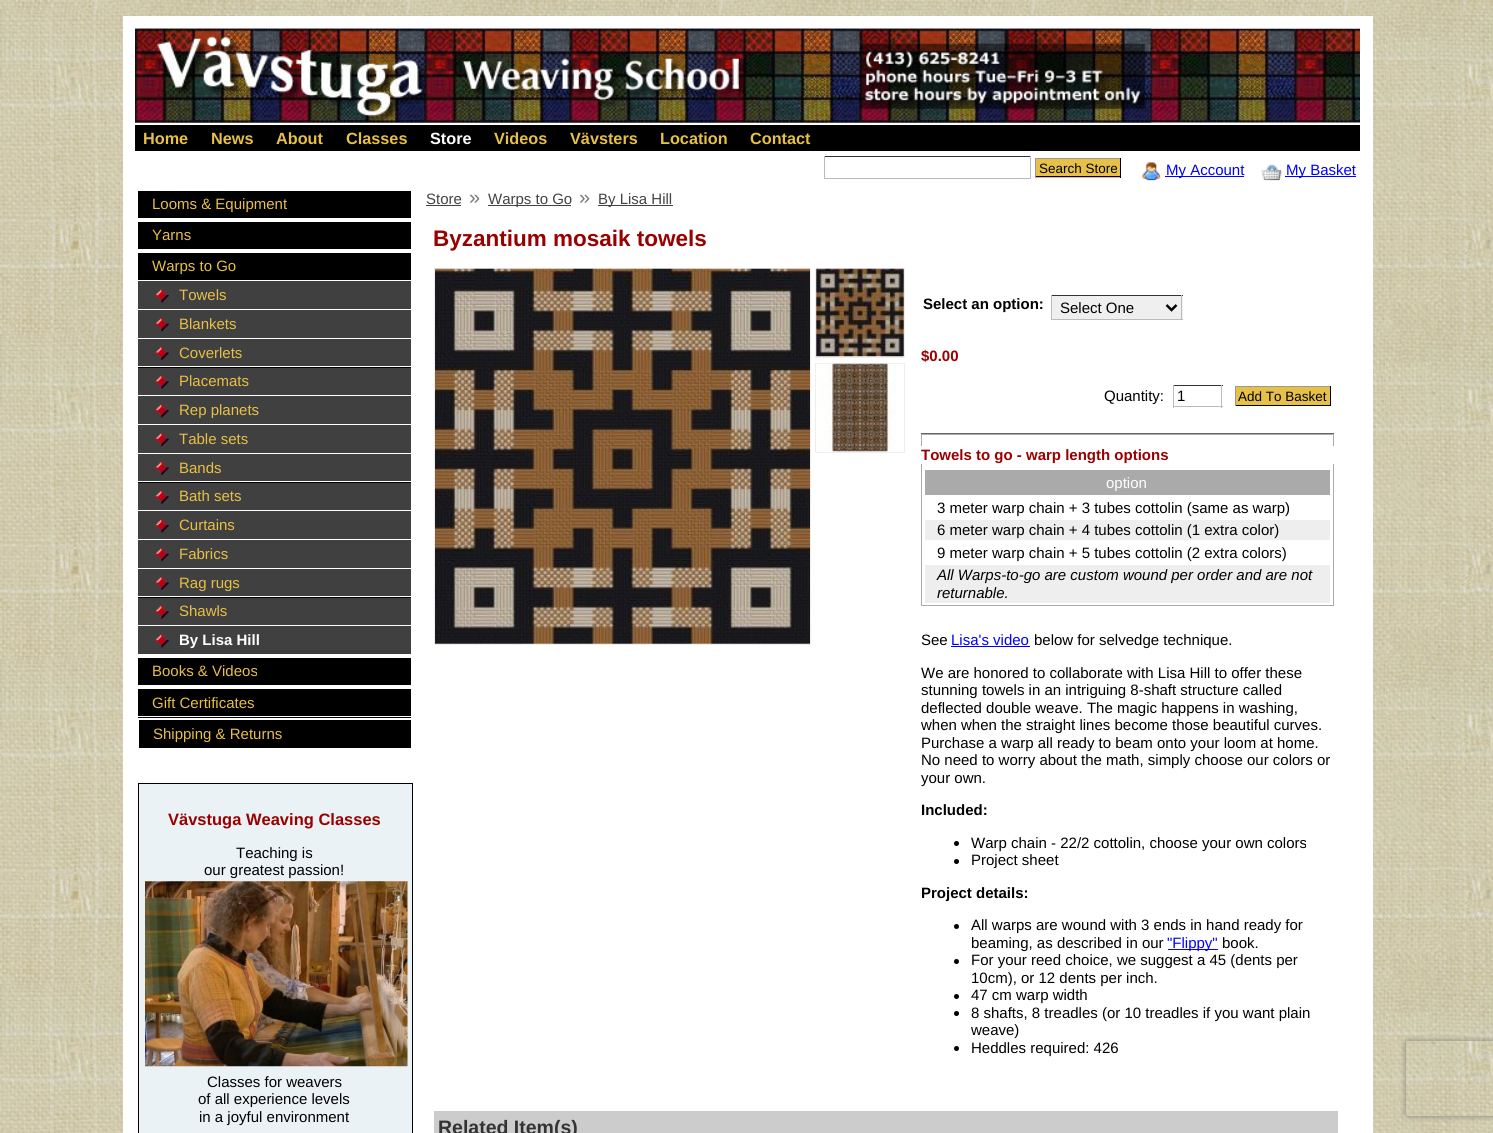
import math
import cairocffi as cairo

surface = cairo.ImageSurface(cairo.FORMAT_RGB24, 1493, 1133)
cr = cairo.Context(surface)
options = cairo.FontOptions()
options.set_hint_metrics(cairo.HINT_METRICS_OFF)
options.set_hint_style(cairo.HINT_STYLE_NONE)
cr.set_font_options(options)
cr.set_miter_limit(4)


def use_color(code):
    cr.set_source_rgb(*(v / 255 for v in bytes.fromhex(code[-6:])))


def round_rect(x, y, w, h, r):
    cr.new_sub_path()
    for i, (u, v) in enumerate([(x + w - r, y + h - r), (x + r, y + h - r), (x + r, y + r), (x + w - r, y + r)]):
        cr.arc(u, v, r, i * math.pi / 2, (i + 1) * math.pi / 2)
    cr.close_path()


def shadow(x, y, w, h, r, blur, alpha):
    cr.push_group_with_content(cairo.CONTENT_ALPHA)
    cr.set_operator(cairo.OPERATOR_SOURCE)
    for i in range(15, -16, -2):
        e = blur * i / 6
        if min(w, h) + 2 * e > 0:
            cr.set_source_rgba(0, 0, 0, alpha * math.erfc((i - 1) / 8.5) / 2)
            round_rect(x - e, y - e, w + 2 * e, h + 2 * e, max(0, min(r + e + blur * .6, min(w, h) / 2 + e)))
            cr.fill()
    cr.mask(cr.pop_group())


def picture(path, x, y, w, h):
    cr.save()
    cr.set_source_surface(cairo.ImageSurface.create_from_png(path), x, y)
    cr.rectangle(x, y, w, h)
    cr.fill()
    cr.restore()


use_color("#ffffff")
cr.paint()
picture("img1.png", 0, 0, 1493, 1133)
use_color("#ffffff")
cr.rectangle(123, 16, 1250, 1117)
cr.fill()
picture("img2.png", 135, 28, 1225, 95)
picture("img3.png", 135, 28, 1017, 95)
use_color("#000000")
cr.rectangle(135, 125, 1225, 26)
cr.fill()
cr.select_font_face("Liberation Sans", cairo.FONT_SLANT_NORMAL, cairo.FONT_WEIGHT_BOLD)
cr.set_font_size(16.25)
use_color("#e7c047")
cr.move_to(143, 144)
cr.show_text("Home")
cr.move_to(211, 144)
cr.show_text("News")
cr.move_to(276, 144)
cr.show_text("About")
cr.move_to(346, 144)
cr.show_text("Classes")
use_color("#ffffff")
cr.move_to(430, 144)
cr.show_text("Store")
use_color("#e7c047")
cr.move_to(494, 144)
cr.show_text("Videos")
cr.move_to(570, 144)
cr.show_text("Vävsters")
cr.move_to(660, 144)
cr.show_text("Location")
cr.move_to(750, 144)
cr.show_text("Contact")
use_color("#333333")
cr.rectangle(824, 156, 207, 1)
cr.fill()
use_color("#bbbbbb")
cr.rectangle(1030, 156, 1, 23)
cr.fill()
cr.rectangle(824, 178, 207, 1)
cr.fill()
cr.rectangle(824, 156, 1, 23)
cr.fill()
use_color("#e7c047")
cr.rectangle(1036, 159, 84, 19)
cr.fill()
use_color("#999999")
cr.rectangle(1035, 158, 86, 1)
cr.fill()
use_color("#000000")
cr.rectangle(1120, 158, 1, 20)
cr.fill()
cr.rectangle(1035, 176, 86, 1)
cr.fill()
use_color("#999999")
cr.rectangle(1035, 158, 1, 20)
cr.fill()
cr.select_font_face("Liberation Sans")
cr.set_font_size(13.5)
use_color("#000000")
cr.move_to(1039, 173)
cr.show_text("Search Store")
picture("img4.png", 1142, 162, 19, 19)
use_color("#0000ff")
cr.rectangle(1165, 176, 79, 1)
cr.fill()
cr.set_font_size(15)
cr.move_to(1166, 175)
cr.show_text("My Account")
picture("img5.png", 1261, 164, 21, 17)
cr.rectangle(1285, 176, 71, 1)
cr.fill()
cr.move_to(1286, 175)
cr.show_text("My Basket")
use_color("#000000")
cr.rectangle(138, 191, 273, 27)
cr.fill()
use_color("#e7c047")
cr.move_to(152, 209)
cr.show_text("Looms & Equipment")
use_color("#000000")
cr.rectangle(138, 222, 273, 27)
cr.fill()
use_color("#e7c047")
cr.move_to(152, 240)
cr.show_text("Yarns")
use_color("#000000")
cr.rectangle(138, 253, 273, 27)
cr.fill()
use_color("#e7c047")
cr.move_to(152, 271)
cr.show_text("Warps to Go")
use_color("#404040")
cr.rectangle(138, 281, 273, 28)
cr.fill()
picture("img6.png", 155, 288, 14, 15)
use_color("#e7c047")
cr.move_to(179, 300)
cr.show_text("Towels")
use_color("#404040")
cr.rectangle(138, 310, 273, 28)
cr.fill()
picture("img7.png", 155, 317, 14, 15)
use_color("#e7c047")
cr.move_to(179, 329)
cr.show_text("Blankets")
use_color("#000000")
cr.rectangle(138, 367, 273, 1)
cr.fill()
use_color("#404040")
cr.rectangle(138, 339, 273, 27)
cr.fill()
picture("img8.png", 155, 346, 14, 14)
use_color("#e7c047")
cr.move_to(179, 358)
cr.show_text("Coverlets")
use_color("#404040")
cr.rectangle(138, 368, 273, 27)
cr.fill()
picture("img9.png", 155, 375, 14, 14)
use_color("#e7c047")
cr.move_to(179, 386)
cr.show_text("Placemats")
use_color("#404040")
cr.rectangle(138, 396, 273, 28)
cr.fill()
picture("img10.png", 155, 403, 14, 15)
use_color("#e7c047")
cr.move_to(179, 415)
cr.show_text("Rep planets")
use_color("#404040")
cr.rectangle(138, 425, 273, 28)
cr.fill()
picture("img7.png", 155, 432, 14, 15)
use_color("#e7c047")
cr.move_to(179, 444)
cr.show_text("Table sets")
use_color("#000000")
cr.rectangle(138, 482, 273, 1)
cr.fill()
use_color("#404040")
cr.rectangle(138, 454, 273, 27)
cr.fill()
picture("img8.png", 155, 461, 14, 14)
use_color("#e7c047")
cr.move_to(179, 473)
cr.show_text("Bands")
use_color("#404040")
cr.rectangle(138, 483, 273, 27)
cr.fill()
picture("img9.png", 155, 490, 14, 14)
use_color("#e7c047")
cr.move_to(179, 501)
cr.show_text("Bath sets")
use_color("#404040")
cr.rectangle(138, 511, 273, 28)
cr.fill()
picture("img10.png", 155, 518, 14, 15)
use_color("#e7c047")
cr.move_to(179, 530)
cr.show_text("Curtains")
use_color("#404040")
cr.rectangle(138, 540, 273, 28)
cr.fill()
picture("img7.png", 155, 547, 14, 15)
use_color("#e7c047")
cr.move_to(179, 559)
cr.show_text("Fabrics")
use_color("#000000")
cr.rectangle(138, 597, 273, 1)
cr.fill()
use_color("#404040")
cr.rectangle(138, 569, 273, 27)
cr.fill()
picture("img8.png", 155, 576, 14, 14)
use_color("#e7c047")
cr.move_to(179, 588)
cr.show_text("Rag rugs")
use_color("#404040")
cr.rectangle(138, 598, 273, 27)
cr.fill()
picture("img9.png", 155, 605, 14, 14)
use_color("#e7c047")
cr.move_to(179, 616)
cr.show_text("Shawls")
use_color("#404040")
cr.rectangle(138, 626, 273, 28)
cr.fill()
picture("img10.png", 155, 633, 14, 15)
cr.select_font_face("Liberation Sans", cairo.FONT_SLANT_NORMAL, cairo.FONT_WEIGHT_BOLD)
use_color("#ffffff")
cr.move_to(179, 645)
cr.show_text("By Lisa Hill")
use_color("#000000")
cr.rectangle(138, 658, 273, 27)
cr.fill()
cr.select_font_face("Liberation Sans")
use_color("#e7c047")
cr.move_to(152, 676)
cr.show_text("Books & Videos")
use_color("#000000")
cr.rectangle(138, 689, 273, 29)
cr.fill()
use_color("#ffffff")
cr.rectangle(138, 716, 273, 1)
cr.fill()
use_color("#e7c047")
cr.move_to(152, 708)
cr.show_text("Gift Certificates")
use_color("#000000")
cr.rectangle(139, 720, 272, 28)
cr.fill()
use_color("#e7c047")
cr.move_to(153, 739)
cr.show_text("Shipping & Returns")
use_color("#eaf2f5")
cr.rectangle(138.5, 783.5, 274, 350)
cr.fill_preserve()
use_color("#000000")
cr.set_line_width(1)
cr.stroke()
cr.select_font_face("Liberation Sans", cairo.FONT_SLANT_NORMAL, cairo.FONT_WEIGHT_BOLD)
cr.set_font_size(16.5)
use_color("#990000")
cr.move_to(168, 825)
cr.show_text("Vävstuga Weaving Classes")
cr.select_font_face("Liberation Sans")
cr.set_font_size(15)
use_color("#000000")
cr.move_to(236, 858)
cr.show_text("Teaching is")
cr.move_to(204, 875)
cr.show_text("our greatest passion!")
picture("img11.png", 145, 881, 263, 186)
cr.move_to(207, 1087)
cr.show_text("Classes for weavers")
cr.move_to(198, 1104)
cr.show_text("of all experience levels")
cr.move_to(199, 1122)
cr.show_text("in a joyful environment")
use_color("#434343")
cr.move_to(426, 204)
cr.show_text("Store")
cr.rectangle(426, 205, 35, 1)
cr.fill()
cr.set_font_size(20)
use_color("#777777")
cr.move_to(469, 204)
cr.show_text("»")
use_color("#434343")
cr.rectangle(488, 205, 83, 1)
cr.fill()
cr.set_font_size(15)
cr.move_to(488, 204)
cr.show_text("Warps to Go")
cr.set_font_size(20)
use_color("#777777")
cr.move_to(579, 204)
cr.show_text("»")
use_color("#434343")
cr.rectangle(598, 205, 75, 1)
cr.fill()
cr.set_font_size(15)
cr.move_to(598, 204)
cr.show_text("By Lisa Hill")
cr.select_font_face("Liberation Sans", cairo.FONT_SLANT_NORMAL, cairo.FONT_WEIGHT_BOLD)
cr.set_font_size(22.5)
use_color("#990000")
cr.move_to(433, 246)
cr.show_text("Byzantium mosaik towels")
cr.rectangle(434.5, 268.5, 376, 376)
use_color("#eeeeee")
cr.stroke()
picture("img12.png", 435, 268, 375, 376)
cr.rectangle(815.5, 268.5, 89, 89)
cr.stroke()
picture("img13.png", 816, 268, 88, 89)
cr.rectangle(815.5, 363.5, 89, 89)
cr.stroke()
picture("img14.png", 817, 363, 86, 89)
cr.set_font_size(15)
use_color("#000000")
cr.move_to(923, 309)
cr.show_text("Select an option:")
use_color("#efefef")
cr.rectangle(1052, 296, 131, 23)
cr.fill()
use_color("#333333")
cr.rectangle(1051, 295, 132, 1)
cr.fill()
use_color("#bbbbbb")
cr.rectangle(1181, 295, 1, 25)
cr.fill()
cr.rectangle(1051, 319, 132, 1)
cr.fill()
cr.rectangle(1051, 295, 1, 25)
cr.fill()
cr.new_path()
cr.move_to(1166.5, 305)
cr.line_to(1171.5, 310)
cr.line_to(1176.5, 305)
use_color("#000000")
cr.set_line_width(2.5)
cr.stroke()
cr.select_font_face("Liberation Sans")
cr.move_to(1060, 313)
cr.show_text("Select One")
cr.select_font_face("Liberation Sans", cairo.FONT_SLANT_NORMAL, cairo.FONT_WEIGHT_BOLD)
use_color("#990000")
cr.move_to(921, 361)
cr.show_text("$0.00")
cr.select_font_face("Liberation Sans")
use_color("#000000")
cr.move_to(1104, 401)
cr.show_text("Quantity:")
use_color("#333333")
cr.rectangle(1173, 385, 50, 1)
cr.fill()
use_color("#bbbbbb")
cr.rectangle(1221, 385, 1, 23)
cr.fill()
cr.rectangle(1173, 406, 50, 1)
cr.fill()
cr.rectangle(1173, 385, 1, 23)
cr.fill()
use_color("#000000")
cr.move_to(1177, 401)
cr.show_text("1")
use_color("#e7c047")
cr.rectangle(1236, 387, 94, 18)
cr.fill()
use_color("#999999")
cr.rectangle(1235, 386, 96, 1)
cr.fill()
use_color("#000000")
cr.rectangle(1330, 386, 1, 20)
cr.fill()
cr.rectangle(1235, 405, 96, 1)
cr.fill()
use_color("#999999")
cr.rectangle(1235, 386, 1, 20)
cr.fill()
cr.set_font_size(13.5)
use_color("#000000")
cr.move_to(1238, 401)
cr.show_text("Add To Basket")
use_color("#666666")
cr.rectangle(921, 433, 413, 1)
cr.fill()
cr.rectangle(921.5, 434.5, 412, 171)
use_color("#aaaaaa")
cr.set_line_width(1)
cr.stroke()
use_color("#ffffff")
cr.rectangle(921, 446, 413, 18)
cr.fill()
cr.select_font_face("Liberation Sans", cairo.FONT_SLANT_NORMAL, cairo.FONT_WEIGHT_BOLD)
cr.set_font_size(15)
use_color("#990000")
cr.move_to(921, 460)
cr.show_text("Towels to go - warp length options")
use_color("#aaaaaa")
cr.rectangle(925, 470, 405, 25)
cr.fill()
cr.select_font_face("Liberation Sans")
use_color("#ffffff")
cr.move_to(1106, 488)
cr.show_text("option")
use_color("#000000")
cr.move_to(937, 513)
cr.show_text("3 meter warp chain + 3 tubes cottolin (same as warp)")
use_color("#eeeeee")
cr.rectangle(925, 520, 405, 20)
cr.fill()
use_color("#000000")
cr.move_to(937, 535)
cr.show_text("6 meter warp chain + 4 tubes cottolin (1 extra color)")
cr.move_to(937, 558)
cr.show_text("9 meter warp chain + 5 tubes cottolin (2 extra colors)")
use_color("#eeeeee")
cr.rectangle(925, 565, 405, 38)
cr.fill()
cr.select_font_face("Liberation Sans", cairo.FONT_SLANT_ITALIC)
use_color("#000000")
cr.move_to(937, 580)
cr.show_text("All Warps-to-go are custom wound per order and are not")
cr.move_to(937, 598)
cr.show_text("returnable.")
cr.select_font_face("Liberation Sans")
cr.move_to(921, 645)
cr.show_text("See")
use_color("#0000ff")
cr.move_to(951, 645)
cr.show_text("Lisa's video")
cr.rectangle(951, 646, 79, 1)
cr.fill()
use_color("#000000")
cr.move_to(1034, 645)
cr.show_text("below for selvedge technique.")
cr.move_to(921, 678)
cr.show_text("We are honored to collaborate with Lisa Hill to offer these")
cr.move_to(921, 695)
cr.show_text("stunning towels in an intriguing 8-shaft structure called")
cr.move_to(921, 713)
cr.show_text("deflected double weave. The magic happens in washing,")
cr.move_to(921, 730)
cr.show_text("when when the straight lines become those beautiful curves.")
cr.move_to(921, 748)
cr.show_text("Purchase a warp all ready to beam onto your loom at home.")
cr.move_to(921, 765)
cr.show_text("No need to worry about the math, simply choose our colors or")
cr.move_to(921, 783)
cr.show_text("your own.")
cr.select_font_face("Liberation Sans", cairo.FONT_SLANT_NORMAL, cairo.FONT_WEIGHT_BOLD)
cr.move_to(921, 815)
cr.show_text("Included:")
cr.new_path()
cr.arc(956.5, 843.5, 2.5, 0, 2 * math.pi)
cr.fill()
cr.select_font_face("Liberation Sans")
cr.move_to(971, 848)
cr.show_text("Warp chain - 22/2 cottolin, choose your own colors")
cr.new_path()
cr.arc(956.5, 861.5, 2.5, 0, 2 * math.pi)
cr.fill()
cr.move_to(971, 865)
cr.show_text("Project sheet")
cr.select_font_face("Liberation Sans", cairo.FONT_SLANT_NORMAL, cairo.FONT_WEIGHT_BOLD)
cr.move_to(921, 898)
cr.show_text("Project details:")
cr.new_path()
cr.arc(956.5, 926.5, 2.5, 0, 2 * math.pi)
cr.fill()
cr.select_font_face("Liberation Sans")
cr.move_to(971, 930)
cr.show_text("All warps are wound with 3 ends in hand ready for")
cr.move_to(971, 948)
cr.show_text("beaming, as described in our")
use_color("#0000ff")
cr.rectangle(1168, 949, 50, 1)
cr.fill()
cr.move_to(1167, 948)
cr.show_text("\"Flippy\"")
use_color("#000000")
cr.move_to(1222, 948)
cr.show_text("book.")
cr.new_path()
cr.arc(956.5, 961.5, 2.5, 0, 2 * math.pi)
cr.fill()
cr.move_to(971, 965)
cr.show_text("For your reed choice, we suggest a 45 (dents per")
cr.move_to(971, 983)
cr.show_text("10cm), or 12 dents per inch.")
cr.new_path()
cr.arc(956.5, 996.5, 2.5, 0, 2 * math.pi)
cr.fill()
cr.move_to(971, 1000)
cr.show_text("47 cm warp width")
cr.new_path()
cr.arc(956.5, 1013.5, 2.5, 0, 2 * math.pi)
cr.fill()
cr.move_to(971, 1018)
cr.show_text("8 shafts, 8 treadles (or 10 treadles if you want plain")
cr.move_to(971, 1035)
cr.show_text("weave)")
cr.new_path()
cr.arc(956.5, 1048.5, 2.5, 0, 2 * math.pi)
cr.fill()
cr.move_to(971, 1053)
cr.show_text("Heddles required: 426")
use_color("#cccccc")
cr.rectangle(434, 1111, 904, 22)
cr.fill()
cr.select_font_face("Liberation Sans", cairo.FONT_SLANT_NORMAL, cairo.FONT_WEIGHT_BOLD)
cr.set_font_size(19.5)
use_color("#333333")
cr.move_to(438, 1134)
cr.show_text("Related Item(s)")
cr.save()
cr.set_fill_rule(cairo.FILL_RULE_EVEN_ODD)
cr.new_path()
cr.move_to(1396, 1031)
cr.line_to(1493, 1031)
cr.line_to(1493, 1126)
cr.line_to(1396, 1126)
cr.close_path()
cr.move_to(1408.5, 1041)
cr.line_to(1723.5, 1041)
cr.curve_to(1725, 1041, 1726, 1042, 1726, 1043.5)
cr.line_to(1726, 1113.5)
cr.curve_to(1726, 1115, 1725, 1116, 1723.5, 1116)
cr.line_to(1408.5, 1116)
cr.curve_to(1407, 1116, 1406, 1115, 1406, 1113.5)
cr.line_to(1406, 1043.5)
cr.curve_to(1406, 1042, 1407, 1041, 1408.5, 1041)
cr.close_path()
cr.clip()
use_color("#808080")
shadow(1406, 1041, 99, 75, 2.5, 3, 1)
cr.restore()
surface.write_to_png("result.png")
